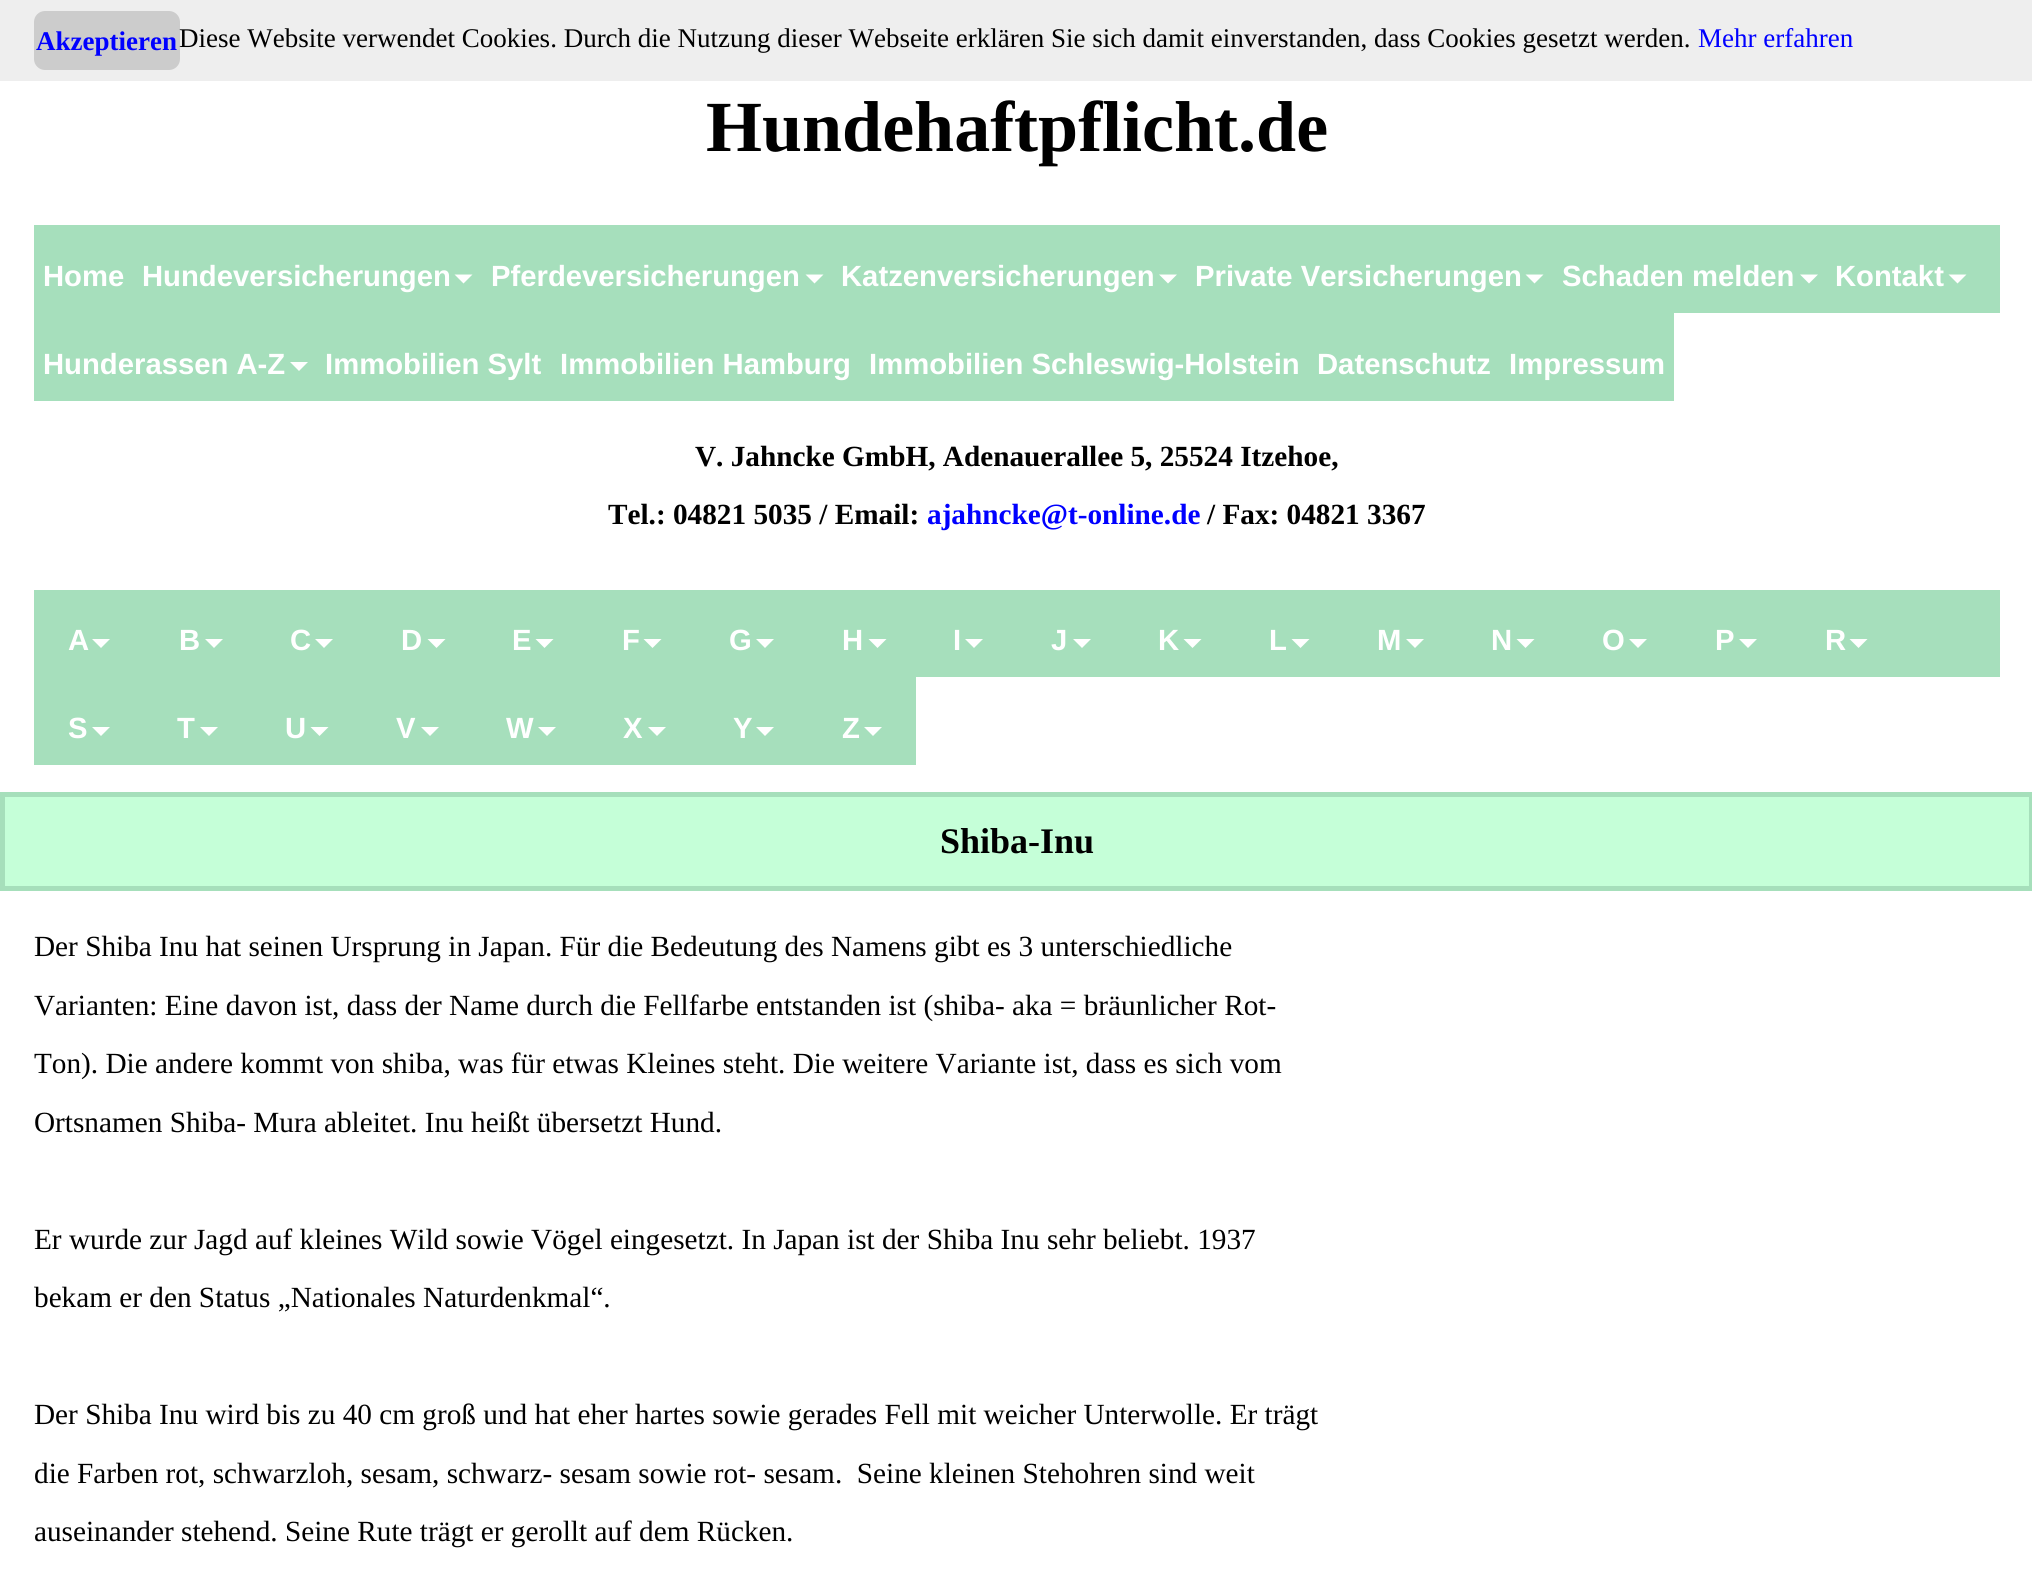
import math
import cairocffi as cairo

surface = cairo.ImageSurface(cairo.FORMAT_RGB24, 2032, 1593)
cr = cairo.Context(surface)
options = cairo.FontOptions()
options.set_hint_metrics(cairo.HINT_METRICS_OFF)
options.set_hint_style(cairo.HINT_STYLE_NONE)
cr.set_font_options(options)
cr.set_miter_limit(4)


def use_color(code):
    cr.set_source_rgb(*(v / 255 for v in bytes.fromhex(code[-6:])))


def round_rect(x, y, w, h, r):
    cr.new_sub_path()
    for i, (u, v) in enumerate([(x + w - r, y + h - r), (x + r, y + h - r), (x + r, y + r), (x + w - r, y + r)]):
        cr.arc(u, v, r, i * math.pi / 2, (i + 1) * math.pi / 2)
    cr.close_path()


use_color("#ffffff")
cr.paint()
use_color("#eeeeee")
cr.rectangle(0, 0, 2032, 81)
cr.fill()
use_color("#cccccc")
round_rect(34, 11, 146, 59, 11)
cr.fill()
cr.select_font_face("Liberation Serif", cairo.FONT_SLANT_NORMAL, cairo.FONT_WEIGHT_BOLD)
cr.set_font_size(27)
use_color("#0000ff")
cr.move_to(36, 50)
cr.show_text("Akzeptieren")
cr.select_font_face("Liberation Serif")
use_color("#000000")
cr.move_to(179, 47)
cr.show_text("Diese Website verwendet Cookies. Durch die Nutzung dieser Webseite erklären Sie sich damit einverstanden, dass Cookies gesetzt werden.")
use_color("#0000ff")
cr.move_to(1698, 47)
cr.show_text("Mehr erfahren")
cr.select_font_face("Liberation Serif", cairo.FONT_SLANT_NORMAL, cairo.FONT_WEIGHT_BOLD)
cr.set_font_size(72)
use_color("#000000")
cr.move_to(706, 151)
cr.show_text("Hundehaftpflicht.de")
use_color("#a6dfbc")
cr.rectangle(34, 225, 1966, 88)
cr.fill()
cr.select_font_face("Liberation Sans", cairo.FONT_SLANT_NORMAL, cairo.FONT_WEIGHT_BOLD)
cr.set_font_size(29.25)
use_color("#ffffff")
cr.move_to(43, 286)
cr.show_text("Home")
cr.move_to(142, 286)
cr.show_text("Hundeversicherungen")
cr.new_path()
cr.move_to(454.5, 274.5)
cr.line_to(472.5, 274.5)
cr.line_to(463.5, 283.5)
cr.close_path()
cr.fill()
cr.move_to(491, 286)
cr.show_text("Pferdeversicherungen")
cr.new_path()
cr.move_to(805.5, 274.5)
cr.line_to(823.5, 274.5)
cr.line_to(814.5, 283.5)
cr.close_path()
cr.fill()
cr.move_to(841, 286)
cr.show_text("Katzenversicherungen")
cr.new_path()
cr.move_to(1159, 274.5)
cr.line_to(1177, 274.5)
cr.line_to(1168, 283.5)
cr.close_path()
cr.fill()
cr.move_to(1195, 286)
cr.show_text("Private Versicherungen")
cr.new_path()
cr.move_to(1525.5, 274.5)
cr.line_to(1543.5, 274.5)
cr.line_to(1534.5, 283.5)
cr.close_path()
cr.fill()
cr.move_to(1562, 286)
cr.show_text("Schaden melden")
cr.new_path()
cr.move_to(1800, 274.5)
cr.line_to(1818, 274.5)
cr.line_to(1809, 283.5)
cr.close_path()
cr.fill()
cr.move_to(1835, 286)
cr.show_text("Kontakt")
cr.new_path()
cr.move_to(1948.5, 274.5)
cr.line_to(1966.5, 274.5)
cr.line_to(1957.5, 283.5)
cr.close_path()
cr.fill()
use_color("#a6dfbc")
cr.rectangle(34, 313, 1640, 88)
cr.fill()
use_color("#ffffff")
cr.move_to(43, 374)
cr.show_text("Hunderassen A-Z")
cr.new_path()
cr.move_to(290, 362)
cr.line_to(308, 362)
cr.line_to(299, 371)
cr.close_path()
cr.fill()
cr.move_to(325, 374)
cr.show_text("Immobilien Sylt")
cr.move_to(560, 374)
cr.show_text("Immobilien Hamburg")
cr.move_to(869, 374)
cr.show_text("Immobilien Schleswig-Holstein")
cr.move_to(1317, 374)
cr.show_text("Datenschutz")
cr.move_to(1509, 374)
cr.show_text("Impressum")
cr.select_font_face("Liberation Serif", cairo.FONT_SLANT_NORMAL, cairo.FONT_WEIGHT_BOLD)
use_color("#000000")
cr.move_to(695, 466)
cr.show_text("V. Jahncke GmbH, Adenauerallee 5, 25524 Itzehoe,")
cr.move_to(608, 524)
cr.show_text("Tel.: 04821 5035 / Email:")
use_color("#0000ff")
cr.move_to(927, 524)
cr.show_text("ajahncke@t-online.de")
use_color("#000000")
cr.move_to(1207, 524)
cr.show_text("/ Fax: 04821 3367")
use_color("#a6dfbc")
cr.rectangle(34, 590, 1966, 87)
cr.fill()
cr.select_font_face("Liberation Sans", cairo.FONT_SLANT_NORMAL, cairo.FONT_WEIGHT_BOLD)
use_color("#ffffff")
cr.move_to(68, 650)
cr.show_text("A")
cr.new_path()
cr.move_to(92, 639)
cr.line_to(110, 639)
cr.line_to(101, 648)
cr.close_path()
cr.fill()
cr.move_to(179, 650)
cr.show_text("B")
cr.new_path()
cr.move_to(205, 639)
cr.line_to(223, 639)
cr.line_to(214, 648)
cr.close_path()
cr.fill()
cr.move_to(290, 650)
cr.show_text("C")
cr.new_path()
cr.move_to(315, 639)
cr.line_to(333, 639)
cr.line_to(324, 648)
cr.close_path()
cr.fill()
cr.move_to(401, 650)
cr.show_text("D")
cr.new_path()
cr.move_to(427.5, 639)
cr.line_to(445.5, 639)
cr.line_to(436.5, 648)
cr.close_path()
cr.fill()
cr.move_to(512, 650)
cr.show_text("E")
cr.new_path()
cr.move_to(535.5, 639)
cr.line_to(553.5, 639)
cr.line_to(544.5, 648)
cr.close_path()
cr.fill()
cr.move_to(622, 650)
cr.show_text("F")
cr.new_path()
cr.move_to(643.5, 639)
cr.line_to(661.5, 639)
cr.line_to(652.5, 648)
cr.close_path()
cr.fill()
cr.move_to(729, 650)
cr.show_text("G")
cr.new_path()
cr.move_to(756, 639)
cr.line_to(774, 639)
cr.line_to(765, 648)
cr.close_path()
cr.fill()
cr.move_to(842, 650)
cr.show_text("H")
cr.new_path()
cr.move_to(868.5, 639)
cr.line_to(886.5, 639)
cr.line_to(877.5, 648)
cr.close_path()
cr.fill()
cr.move_to(953, 650)
cr.show_text("I")
cr.new_path()
cr.move_to(965, 639)
cr.line_to(983, 639)
cr.line_to(974, 648)
cr.close_path()
cr.fill()
cr.move_to(1051, 650)
cr.show_text("J")
cr.new_path()
cr.move_to(1073, 639)
cr.line_to(1091, 639)
cr.line_to(1082, 648)
cr.close_path()
cr.fill()
cr.move_to(1158, 650)
cr.show_text("K")
cr.new_path()
cr.move_to(1183.5, 639)
cr.line_to(1201.5, 639)
cr.line_to(1192.5, 648)
cr.close_path()
cr.fill()
cr.move_to(1269, 650)
cr.show_text("L")
cr.new_path()
cr.move_to(1291.5, 639)
cr.line_to(1309.5, 639)
cr.line_to(1300.5, 648)
cr.close_path()
cr.fill()
cr.move_to(1377, 650)
cr.show_text("M")
cr.new_path()
cr.move_to(1406, 639)
cr.line_to(1424, 639)
cr.line_to(1415, 648)
cr.close_path()
cr.fill()
cr.move_to(1491, 650)
cr.show_text("N")
cr.new_path()
cr.move_to(1516.5, 639)
cr.line_to(1534.5, 639)
cr.line_to(1525.5, 648)
cr.close_path()
cr.fill()
cr.move_to(1602, 650)
cr.show_text("O")
cr.new_path()
cr.move_to(1629, 639)
cr.line_to(1647, 639)
cr.line_to(1638, 648)
cr.close_path()
cr.fill()
cr.move_to(1715, 650)
cr.show_text("P")
cr.new_path()
cr.move_to(1739, 639)
cr.line_to(1757, 639)
cr.line_to(1748, 648)
cr.close_path()
cr.fill()
cr.move_to(1825, 650)
cr.show_text("R")
cr.new_path()
cr.move_to(1849.5, 639)
cr.line_to(1867.5, 639)
cr.line_to(1858.5, 648)
cr.close_path()
cr.fill()
use_color("#a6dfbc")
cr.rectangle(34, 677, 882, 88)
cr.fill()
use_color("#ffffff")
cr.move_to(68, 738)
cr.show_text("S")
cr.new_path()
cr.move_to(92, 727)
cr.line_to(110, 727)
cr.line_to(101, 736)
cr.close_path()
cr.fill()
cr.move_to(177, 738)
cr.show_text("T")
cr.new_path()
cr.move_to(200, 727)
cr.line_to(218, 727)
cr.line_to(209, 736)
cr.close_path()
cr.fill()
cr.move_to(285, 738)
cr.show_text("U")
cr.new_path()
cr.move_to(310.5, 727)
cr.line_to(328.5, 727)
cr.line_to(319.5, 736)
cr.close_path()
cr.fill()
cr.move_to(396, 738)
cr.show_text("V")
cr.new_path()
cr.move_to(421, 727)
cr.line_to(439, 727)
cr.line_to(430, 736)
cr.close_path()
cr.fill()
cr.move_to(506, 738)
cr.show_text("W")
cr.new_path()
cr.move_to(538, 727)
cr.line_to(556, 727)
cr.line_to(547, 736)
cr.close_path()
cr.fill()
cr.move_to(623, 738)
cr.show_text("X")
cr.new_path()
cr.move_to(648, 727)
cr.line_to(666, 727)
cr.line_to(657, 736)
cr.close_path()
cr.fill()
cr.move_to(733, 738)
cr.show_text("Y")
cr.new_path()
cr.move_to(756, 727)
cr.line_to(774, 727)
cr.line_to(765, 736)
cr.close_path()
cr.fill()
cr.move_to(842, 738)
cr.show_text("Z")
cr.new_path()
cr.move_to(864, 727)
cr.line_to(882, 727)
cr.line_to(873, 736)
cr.close_path()
cr.fill()
use_color("#c5ffd8")
cr.rectangle(2.5, 794.5, 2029, 94)
cr.fill_preserve()
use_color("#a6dfbb")
cr.set_line_width(5)
cr.stroke()
cr.select_font_face("Liberation Serif", cairo.FONT_SLANT_NORMAL, cairo.FONT_WEIGHT_BOLD)
cr.set_font_size(36)
use_color("#000000")
cr.move_to(940, 853)
cr.show_text("Shiba-Inu")
cr.select_font_face("Liberation Serif")
cr.set_font_size(29.25)
cr.move_to(34, 956)
cr.show_text("Der Shiba Inu hat seinen Ursprung in Japan. Für die Bedeutung des Namens gibt es 3 unterschiedliche")
cr.move_to(34, 1015)
cr.show_text("Varianten: Eine davon ist, dass der Name durch die Fellfarbe entstanden ist (shiba- aka = bräunlicher Rot-")
cr.move_to(34, 1073)
cr.show_text("Ton). Die andere kommt von shiba, was für etwas Kleines steht. Die weitere Variante ist, dass es sich vom")
cr.move_to(34, 1132)
cr.show_text("Ortsnamen Shiba- Mura ableitet. Inu heißt übersetzt Hund.")
cr.move_to(34, 1249)
cr.show_text("Er wurde zur Jagd auf kleines Wild sowie Vögel eingesetzt. In Japan ist der Shiba Inu sehr beliebt. 1937")
cr.move_to(34, 1307)
cr.show_text("bekam er den Status „Nationales Naturdenkmal“.")
cr.move_to(34, 1424)
cr.show_text("Der Shiba Inu wird bis zu 40 cm groß und hat eher hartes sowie gerades Fell mit weicher Unterwolle. Er trägt")
cr.move_to(34, 1483)
cr.show_text("die Farben rot, schwarzloh, sesam, schwarz- sesam sowie rot- sesam.  Seine kleinen Stehohren sind weit")
cr.move_to(34, 1541)
cr.show_text("auseinander stehend. Seine Rute trägt er gerollt auf dem Rücken.")
surface.write_to_png("result.png")
